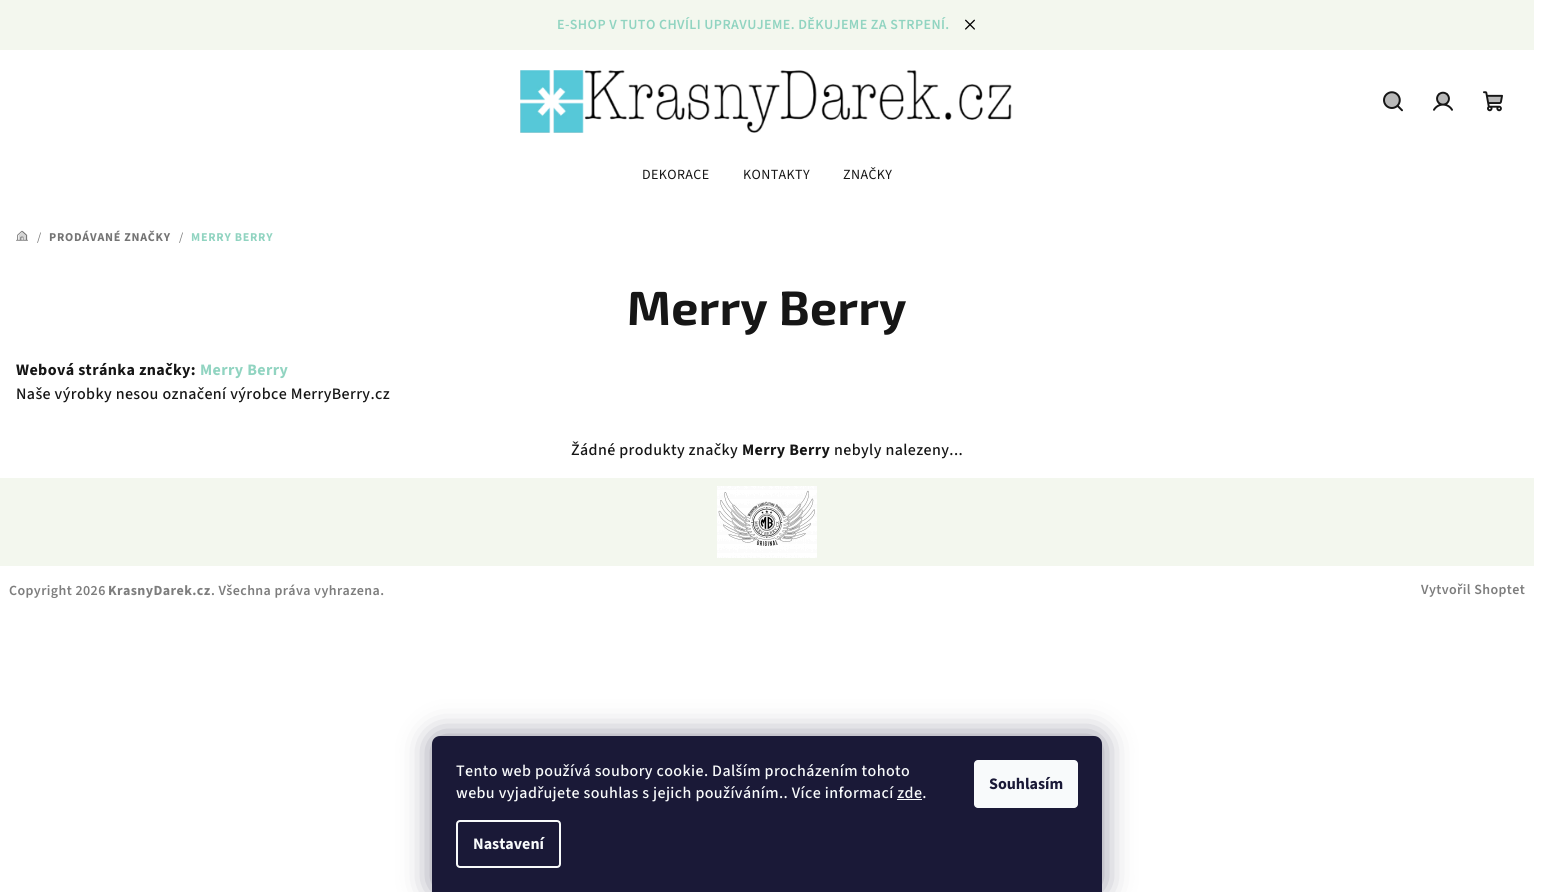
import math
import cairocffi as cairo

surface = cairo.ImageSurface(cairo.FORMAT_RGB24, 1549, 892)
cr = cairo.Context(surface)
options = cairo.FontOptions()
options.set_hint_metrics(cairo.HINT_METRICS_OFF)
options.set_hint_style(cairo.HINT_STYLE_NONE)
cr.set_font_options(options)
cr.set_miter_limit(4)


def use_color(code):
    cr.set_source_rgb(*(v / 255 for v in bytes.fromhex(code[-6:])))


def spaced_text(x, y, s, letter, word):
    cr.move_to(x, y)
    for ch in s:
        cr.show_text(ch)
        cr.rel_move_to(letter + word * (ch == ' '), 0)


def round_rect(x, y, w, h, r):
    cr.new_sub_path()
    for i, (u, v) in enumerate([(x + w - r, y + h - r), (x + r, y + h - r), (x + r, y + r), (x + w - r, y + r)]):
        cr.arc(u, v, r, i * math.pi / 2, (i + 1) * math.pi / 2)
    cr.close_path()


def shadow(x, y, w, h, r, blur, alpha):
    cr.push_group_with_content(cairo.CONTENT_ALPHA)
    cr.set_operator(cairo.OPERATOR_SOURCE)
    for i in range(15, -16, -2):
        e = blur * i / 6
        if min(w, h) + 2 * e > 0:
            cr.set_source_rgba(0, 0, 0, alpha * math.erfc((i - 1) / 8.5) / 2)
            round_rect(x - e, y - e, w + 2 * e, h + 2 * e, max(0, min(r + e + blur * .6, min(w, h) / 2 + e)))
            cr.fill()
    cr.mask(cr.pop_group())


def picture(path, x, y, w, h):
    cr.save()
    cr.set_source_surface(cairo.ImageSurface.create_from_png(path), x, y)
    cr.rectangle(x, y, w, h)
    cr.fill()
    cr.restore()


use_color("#ffffff")
cr.paint()
use_color("#f3f7ee")
cr.rectangle(0, 0, 1534, 50)
cr.fill()
cr.select_font_face("Source Sans 3 SemiBold")
cr.set_font_size(14)
use_color("#91d4c1")
spaced_text(557, 29, "E-SHOP V TUTO CHVÍLI UPRAVUJEME. DĚKUJEME ZA STRPENÍ.", 0.4, 0)
picture("img1.png", 965, 19, 10, 11)
picture("img2.png", 520, 70, 492, 63)
picture("img3.png", 1383, 91, 20, 21)
cr.set_source_rgba(0.086, 0.086, 0.086, 0.3)
cr.new_path()
cr.move_to(1392, 108)
cr.curve_to(1402, 108, 1402, 92, 1392, 92)
cr.curve_to(1381.5, 92, 1381.5, 108, 1392, 108)
cr.close_path()
cr.fill()
picture("img4.png", 1433, 91, 20, 20)
cr.rectangle(1438, 93, 10, 11)
cr.fill()
picture("img5.png", 1483, 91, 20, 21)
cr.rectangle(1488, 96, 13, 7)
cr.fill()
cr.select_font_face("Source Sans 3")
use_color("#161616")
spaced_text(642, 179, "DEKORACE", 0.4, 0)
spaced_text(743, 179, "KONTAKTY", 0.4, 0)
spaced_text(843, 179, "ZNAČKY", 0.4, 0)
picture("img6.png", 16, 230, 12, 11)
picture("img7.png", 18, 231, 10, 10)
cr.set_font_size(12)
use_color("#747474")
spaced_text(37, 241, "/", 0.75, 0)
cr.select_font_face("Source Sans 3", cairo.FONT_SLANT_NORMAL, cairo.FONT_WEIGHT_BOLD)
spaced_text(49, 241, "PRODÁVANÉ ZNAČKY", 0.75, 0)
cr.select_font_face("Source Sans 3")
spaced_text(179, 241, "/", 0.75, 0)
cr.select_font_face("Source Sans 3", cairo.FONT_SLANT_NORMAL, cairo.FONT_WEIGHT_BOLD)
use_color("#91d4c1")
spaced_text(191, 241, "MERRY BERRY", 0.75, 0)
cr.select_font_face("Exo 2", cairo.FONT_SLANT_NORMAL, cairo.FONT_WEIGHT_BOLD)
cr.set_font_size(48)
use_color("#161616")
spaced_text(627, 325, "Merry Berry", 0.4, 0)
cr.select_font_face("Source Sans 3", cairo.FONT_SLANT_NORMAL, cairo.FONT_WEIGHT_BOLD)
cr.set_font_size(16)
spaced_text(16, 375, "Webová stránka značky:", 0.4, 0)
use_color("#91d4c1")
spaced_text(200, 375, "Merry Berry", 0.4, 0)
cr.select_font_face("Source Sans 3 Medium")
use_color("#161616")
spaced_text(16, 399, "Naše výrobky nesou označení výrobce MerryBerry.cz", 0.4, 0)
spaced_text(571, 455, "Žádné produkty značky", 0.4, 0)
cr.select_font_face("Source Sans 3", cairo.FONT_SLANT_NORMAL, cairo.FONT_WEIGHT_BOLD)
spaced_text(742, 455, "Merry Berry", 0.4, 0)
cr.select_font_face("Source Sans 3 Medium")
spaced_text(834, 455, "nebyly nalezeny...", 0.4, 0)
use_color("#f3f7ee")
cr.rectangle(0, 478, 1534, 88)
cr.fill()
picture("img8.png", 717, 486, 100, 72)
cr.select_font_face("Source Sans 3 SemiBold")
cr.set_font_size(14)
use_color("#7d7d7d")
spaced_text(9, 595, "Copyright 2026", 0.4, 0)
cr.select_font_face("Source Sans 3", cairo.FONT_SLANT_NORMAL, cairo.FONT_WEIGHT_BOLD)
spaced_text(108, 595, "KrasnyDarek.cz", 0.4, 0)
cr.select_font_face("Source Sans 3 SemiBold")
spaced_text(211, 595, ". Všechna práva vyhrazena.", 0.4, 0)
spaced_text(1421, 594, "Vytvořil Shoptet", 0.4, 0)
use_color("#1b1939")
shadow(432, 736, 670, 156, 8, 15, 0.5)
use_color("#1a1937")
cr.new_path()
cr.move_to(440, 736)
cr.line_to(1094, 736)
cr.curve_to(1098.5, 736, 1102, 739.5, 1102, 744)
cr.line_to(1102, 892)
cr.line_to(432, 892)
cr.line_to(432, 744)
cr.curve_to(432, 739.5, 435.5, 736, 440, 736)
cr.close_path()
cr.fill()
cr.select_font_face("Source Sans 3 Medium")
cr.set_font_size(16)
use_color("#f8fafb")
spaced_text(456, 776, "Tento web používá soubory cookie. Dalším procházením tohoto", 0.4, 0)
spaced_text(456, 798, "webu vyjadřujete souhlas s jejich používáním.. Více informací zde.", 0.4, 0)
cr.rectangle(897, 799, 25, 1)
cr.fill()
round_rect(457, 821, 103, 46, 3)
cr.stroke()
cr.select_font_face("Source Sans 3", cairo.FONT_SLANT_NORMAL, cairo.FONT_WEIGHT_BOLD)
cr.move_to(473, 849)
cr.show_text("Nastavení")
round_rect(974, 760, 104, 48, 4)
cr.fill()
use_color("#1a1937")
cr.move_to(989, 789)
cr.show_text("Souhlasím")
surface.write_to_png("result.png")
